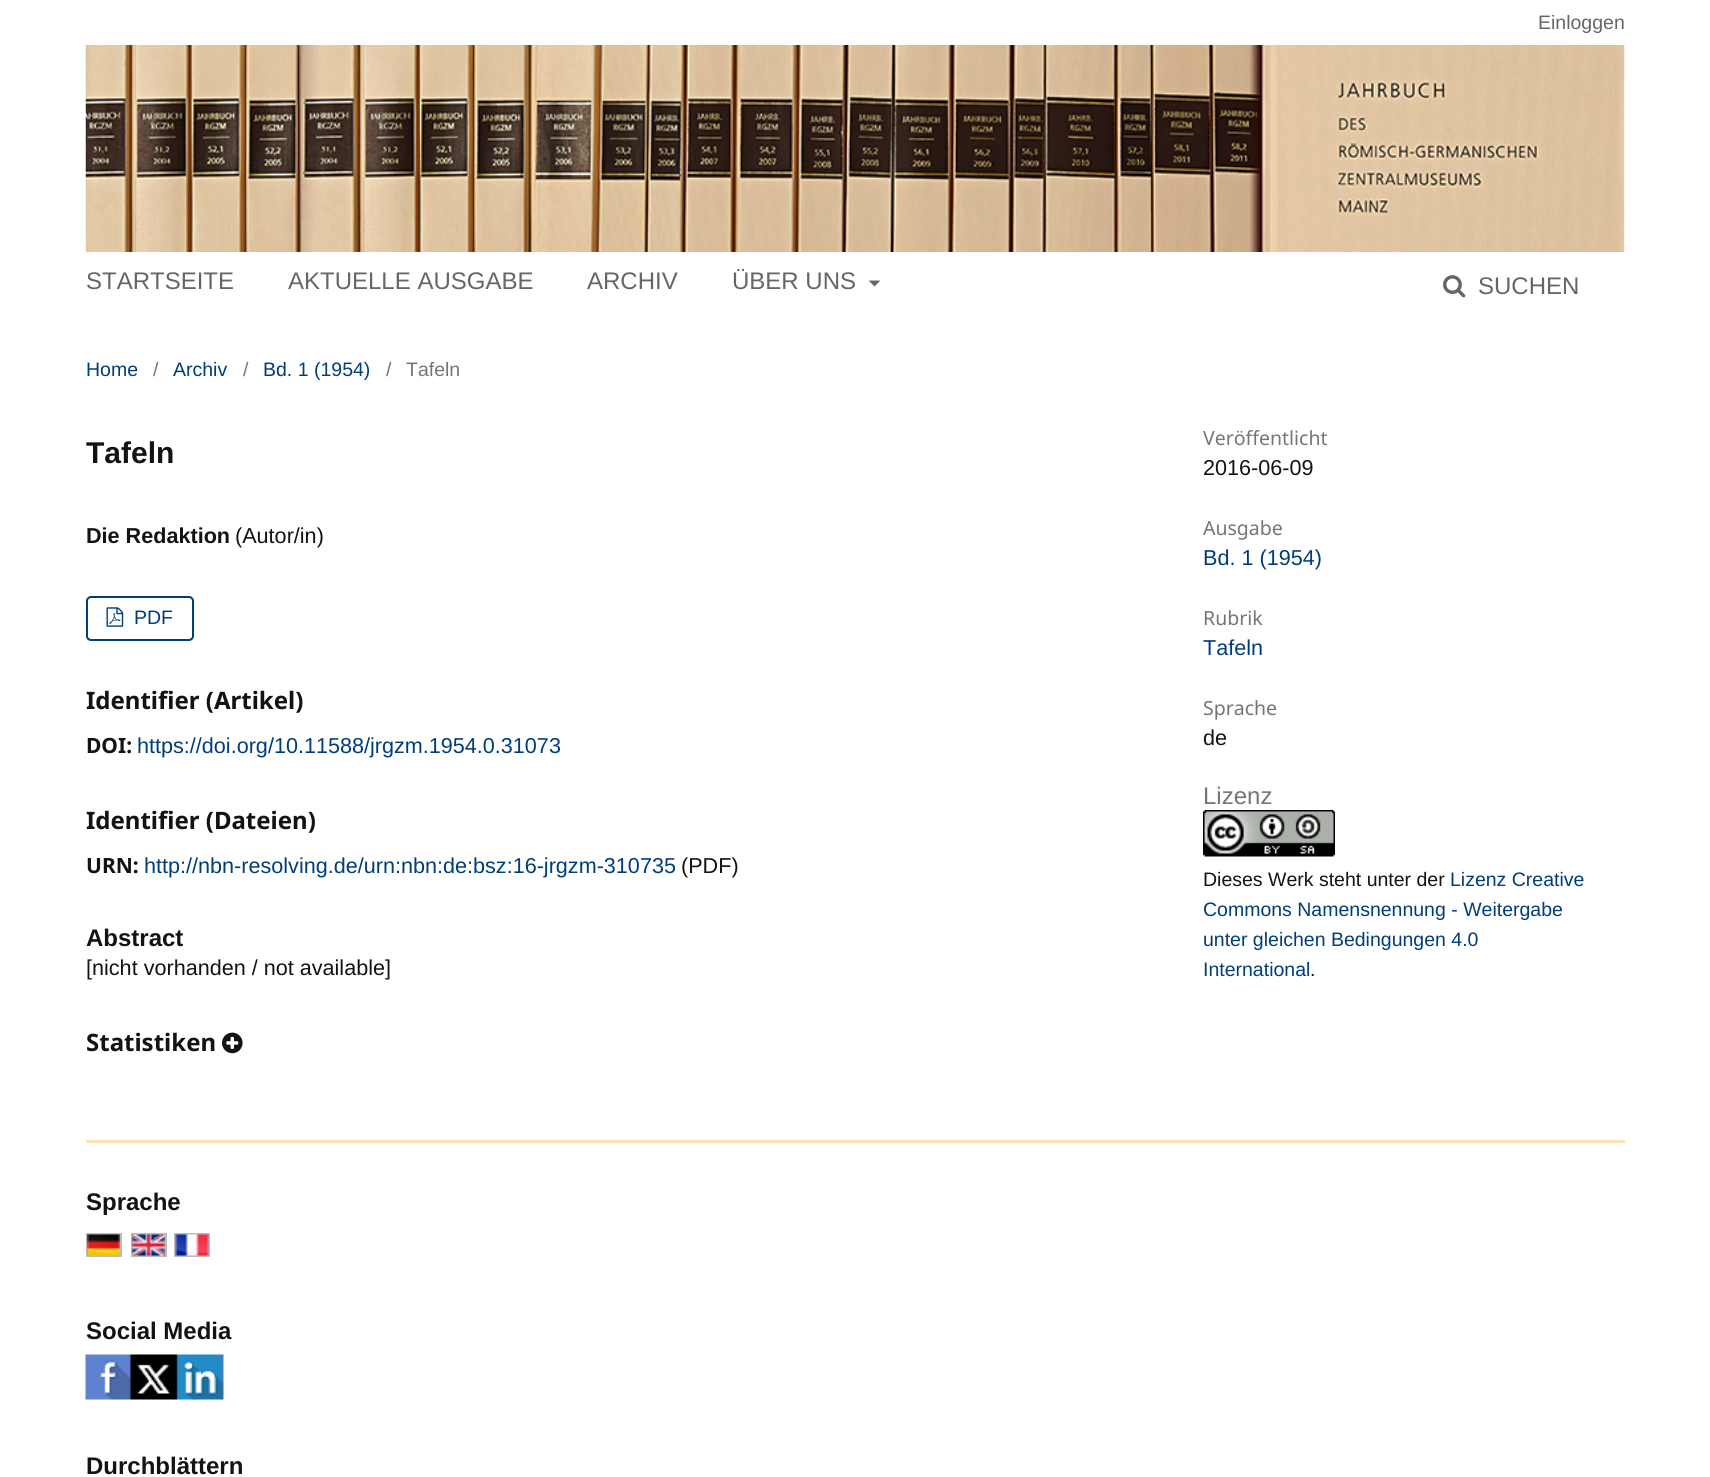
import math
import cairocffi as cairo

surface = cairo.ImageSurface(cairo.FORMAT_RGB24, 1710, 1477)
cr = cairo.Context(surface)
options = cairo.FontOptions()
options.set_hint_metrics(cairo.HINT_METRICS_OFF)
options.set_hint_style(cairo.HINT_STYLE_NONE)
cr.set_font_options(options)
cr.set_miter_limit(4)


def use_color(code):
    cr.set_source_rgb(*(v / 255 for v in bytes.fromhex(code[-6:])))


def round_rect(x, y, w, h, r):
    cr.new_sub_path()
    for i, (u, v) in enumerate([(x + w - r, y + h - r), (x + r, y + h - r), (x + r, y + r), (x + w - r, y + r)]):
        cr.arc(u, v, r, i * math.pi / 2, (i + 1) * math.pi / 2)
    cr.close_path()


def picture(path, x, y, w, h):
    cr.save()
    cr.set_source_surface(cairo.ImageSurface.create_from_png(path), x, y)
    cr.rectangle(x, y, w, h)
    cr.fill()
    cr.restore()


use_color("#ffffff")
cr.paint()
cr.select_font_face("Liberation Sans")
cr.set_font_size(19.5)
use_color("#666666")
cr.move_to(1538, 29)
cr.show_text("Einloggen")
cr.set_font_size(24)
cr.move_to(86, 289)
cr.show_text("STARTSEITE")
cr.move_to(288, 289)
cr.show_text("AKTUELLE AUSGABE")
cr.move_to(587, 289)
cr.show_text("ARCHIV")
cr.move_to(732, 289)
cr.show_text("ÜBER UNS")
cr.new_path()
cr.move_to(868.5, 280.5)
cr.line_to(880.5, 280.5)
cr.line_to(874.5, 286.5)
cr.close_path()
cr.fill()
picture("img1.png", 1443, 275, 23, 23)
cr.move_to(1478, 294)
cr.show_text("SUCHEN")
picture("img2.png", 85, 45, 1540, 207)
cr.set_font_size(19.5)
use_color("#003d7b")
cr.move_to(86, 376)
cr.show_text("Home")
use_color("#757575")
cr.move_to(153, 376)
cr.show_text("/")
use_color("#003d7b")
cr.move_to(173, 376)
cr.show_text("Archiv")
use_color("#757575")
cr.move_to(243, 376)
cr.show_text("/")
use_color("#003d7b")
cr.move_to(263, 376)
cr.show_text("Bd. 1 (1954)")
use_color("#757575")
cr.move_to(386, 376)
cr.show_text("/")
cr.move_to(406, 376)
cr.show_text("Tafeln")
cr.save()
cr.rectangle(86, 309, 1539, 831)
cr.clip()
cr.select_font_face("Liberation Sans", cairo.FONT_SLANT_NORMAL, cairo.FONT_WEIGHT_BOLD)
cr.set_font_size(30)
use_color("#141313")
cr.move_to(86, 463)
cr.show_text("Tafeln")
cr.restore()
cr.select_font_face("Liberation Sans", cairo.FONT_SLANT_NORMAL, cairo.FONT_WEIGHT_BOLD)
cr.set_font_size(21.6)
use_color("#141313")
cr.move_to(86, 543)
cr.show_text("Die Redaktion")
cr.select_font_face("Liberation Sans")
cr.move_to(235, 543)
cr.show_text("(Autor/in)")
round_rect(87, 597, 106, 43, 4)
use_color("#003d7b")
cr.stroke()
picture("img3.png", 106, 607, 18, 20)
cr.set_font_size(19.5)
cr.move_to(134, 624)
cr.show_text("PDF")
cr.select_font_face("Noto Sans", cairo.FONT_SLANT_NORMAL, cairo.FONT_WEIGHT_BOLD)
cr.set_font_size(24)
use_color("#141313")
cr.move_to(86, 709)
cr.show_text("Identifier (Artikel)")
cr.set_font_size(21)
cr.move_to(86, 753)
cr.show_text("DOI:")
cr.select_font_face("Liberation Sans")
cr.set_font_size(21.6)
use_color("#003d7b")
cr.move_to(137, 753)
cr.show_text("https://doi.org/10.11588/jrgzm.1954.0.31073")
cr.select_font_face("Noto Sans", cairo.FONT_SLANT_NORMAL, cairo.FONT_WEIGHT_BOLD)
cr.set_font_size(24)
use_color("#141313")
cr.move_to(86, 829)
cr.show_text("Identifier (Dateien)")
cr.set_font_size(21)
cr.move_to(86, 873)
cr.show_text("URN:")
cr.select_font_face("Liberation Sans")
cr.set_font_size(21.6)
use_color("#003d7b")
cr.move_to(144, 873)
cr.show_text("http://nbn-resolving.de/urn:nbn:de:bsz:16-jrgzm-310735")
use_color("#141313")
cr.move_to(681, 873)
cr.show_text("(PDF)")
cr.select_font_face("Liberation Sans", cairo.FONT_SLANT_NORMAL, cairo.FONT_WEIGHT_BOLD)
cr.set_font_size(24)
cr.move_to(86, 946)
cr.show_text("Abstract")
cr.select_font_face("Liberation Sans")
cr.set_font_size(21.6)
cr.move_to(86, 975)
cr.show_text("[nicht vorhanden / not available]")
cr.select_font_face("Noto Sans", cairo.FONT_SLANT_NORMAL, cairo.FONT_WEIGHT_BOLD)
cr.set_font_size(24)
cr.move_to(86, 1051)
cr.show_text("Statistiken")
picture("img4.png", 222, 1032, 21, 22)
cr.select_font_face("Noto Sans")
cr.set_font_size(19.5)
use_color("#757575")
cr.move_to(1203, 445)
cr.show_text("Veröffentlicht")
cr.select_font_face("Liberation Sans")
cr.set_font_size(21.6)
use_color("#141313")
cr.move_to(1203, 475)
cr.show_text("2016-06-09")
cr.select_font_face("Noto Sans")
cr.set_font_size(19.5)
use_color("#757575")
cr.move_to(1203, 535)
cr.show_text("Ausgabe")
cr.select_font_face("Liberation Sans")
cr.set_font_size(21.6)
use_color("#003d7b")
cr.move_to(1203, 565)
cr.show_text("Bd. 1 (1954)")
cr.select_font_face("Noto Sans")
cr.set_font_size(19.5)
use_color("#757575")
cr.move_to(1203, 625)
cr.show_text("Rubrik")
cr.select_font_face("Liberation Sans")
cr.set_font_size(21.6)
use_color("#003d7b")
cr.move_to(1203, 655)
cr.show_text("Tafeln")
cr.select_font_face("Noto Sans")
cr.set_font_size(19.5)
use_color("#757575")
cr.move_to(1203, 715)
cr.show_text("Sprache")
cr.select_font_face("Liberation Sans")
cr.set_font_size(21.6)
use_color("#141313")
cr.move_to(1203, 745)
cr.show_text("de")
cr.set_font_size(24)
use_color("#757575")
cr.move_to(1203, 804)
cr.show_text("Lizenz")
picture("img5.png", 1203, 810, 132, 47)
cr.set_font_size(19.5)
use_color("#141313")
cr.move_to(1203, 886)
cr.show_text("Dieses Werk steht unter der")
use_color("#003d7b")
cr.move_to(1450, 886)
cr.show_text("Lizenz Creative")
cr.move_to(1203, 916)
cr.show_text("Commons Namensnennung - Weitergabe")
cr.move_to(1203, 946)
cr.show_text("unter gleichen Bedingungen 4.0")
cr.move_to(1203, 976)
cr.show_text("International")
use_color("#141313")
cr.move_to(1310, 976)
cr.show_text(".")
use_color("#f9e1bc")
cr.rectangle(86, 1140, 1539, 3)
cr.fill()
cr.select_font_face("Liberation Sans", cairo.FONT_SLANT_NORMAL, cairo.FONT_WEIGHT_BOLD)
cr.set_font_size(24)
use_color("#141313")
cr.move_to(86, 1210)
cr.show_text("Sprache")
cr.rectangle(87, 1234, 34, 22)
use_color("#bbbbbb")
cr.stroke()
picture("img6.png", 87, 1234, 33, 22)
cr.rectangle(132, 1234, 34, 22)
cr.stroke()
picture("img7.png", 132, 1234, 33, 22)
cr.rectangle(175, 1234, 34, 22)
cr.stroke()
picture("img8.png", 175, 1234, 34, 22)
use_color("#141313")
cr.move_to(86, 1339)
cr.show_text("Social Media")
picture("img9.png", 85, 1354, 139, 46)
cr.move_to(86, 1474)
cr.show_text("Durchblättern")
surface.write_to_png("result.png")
